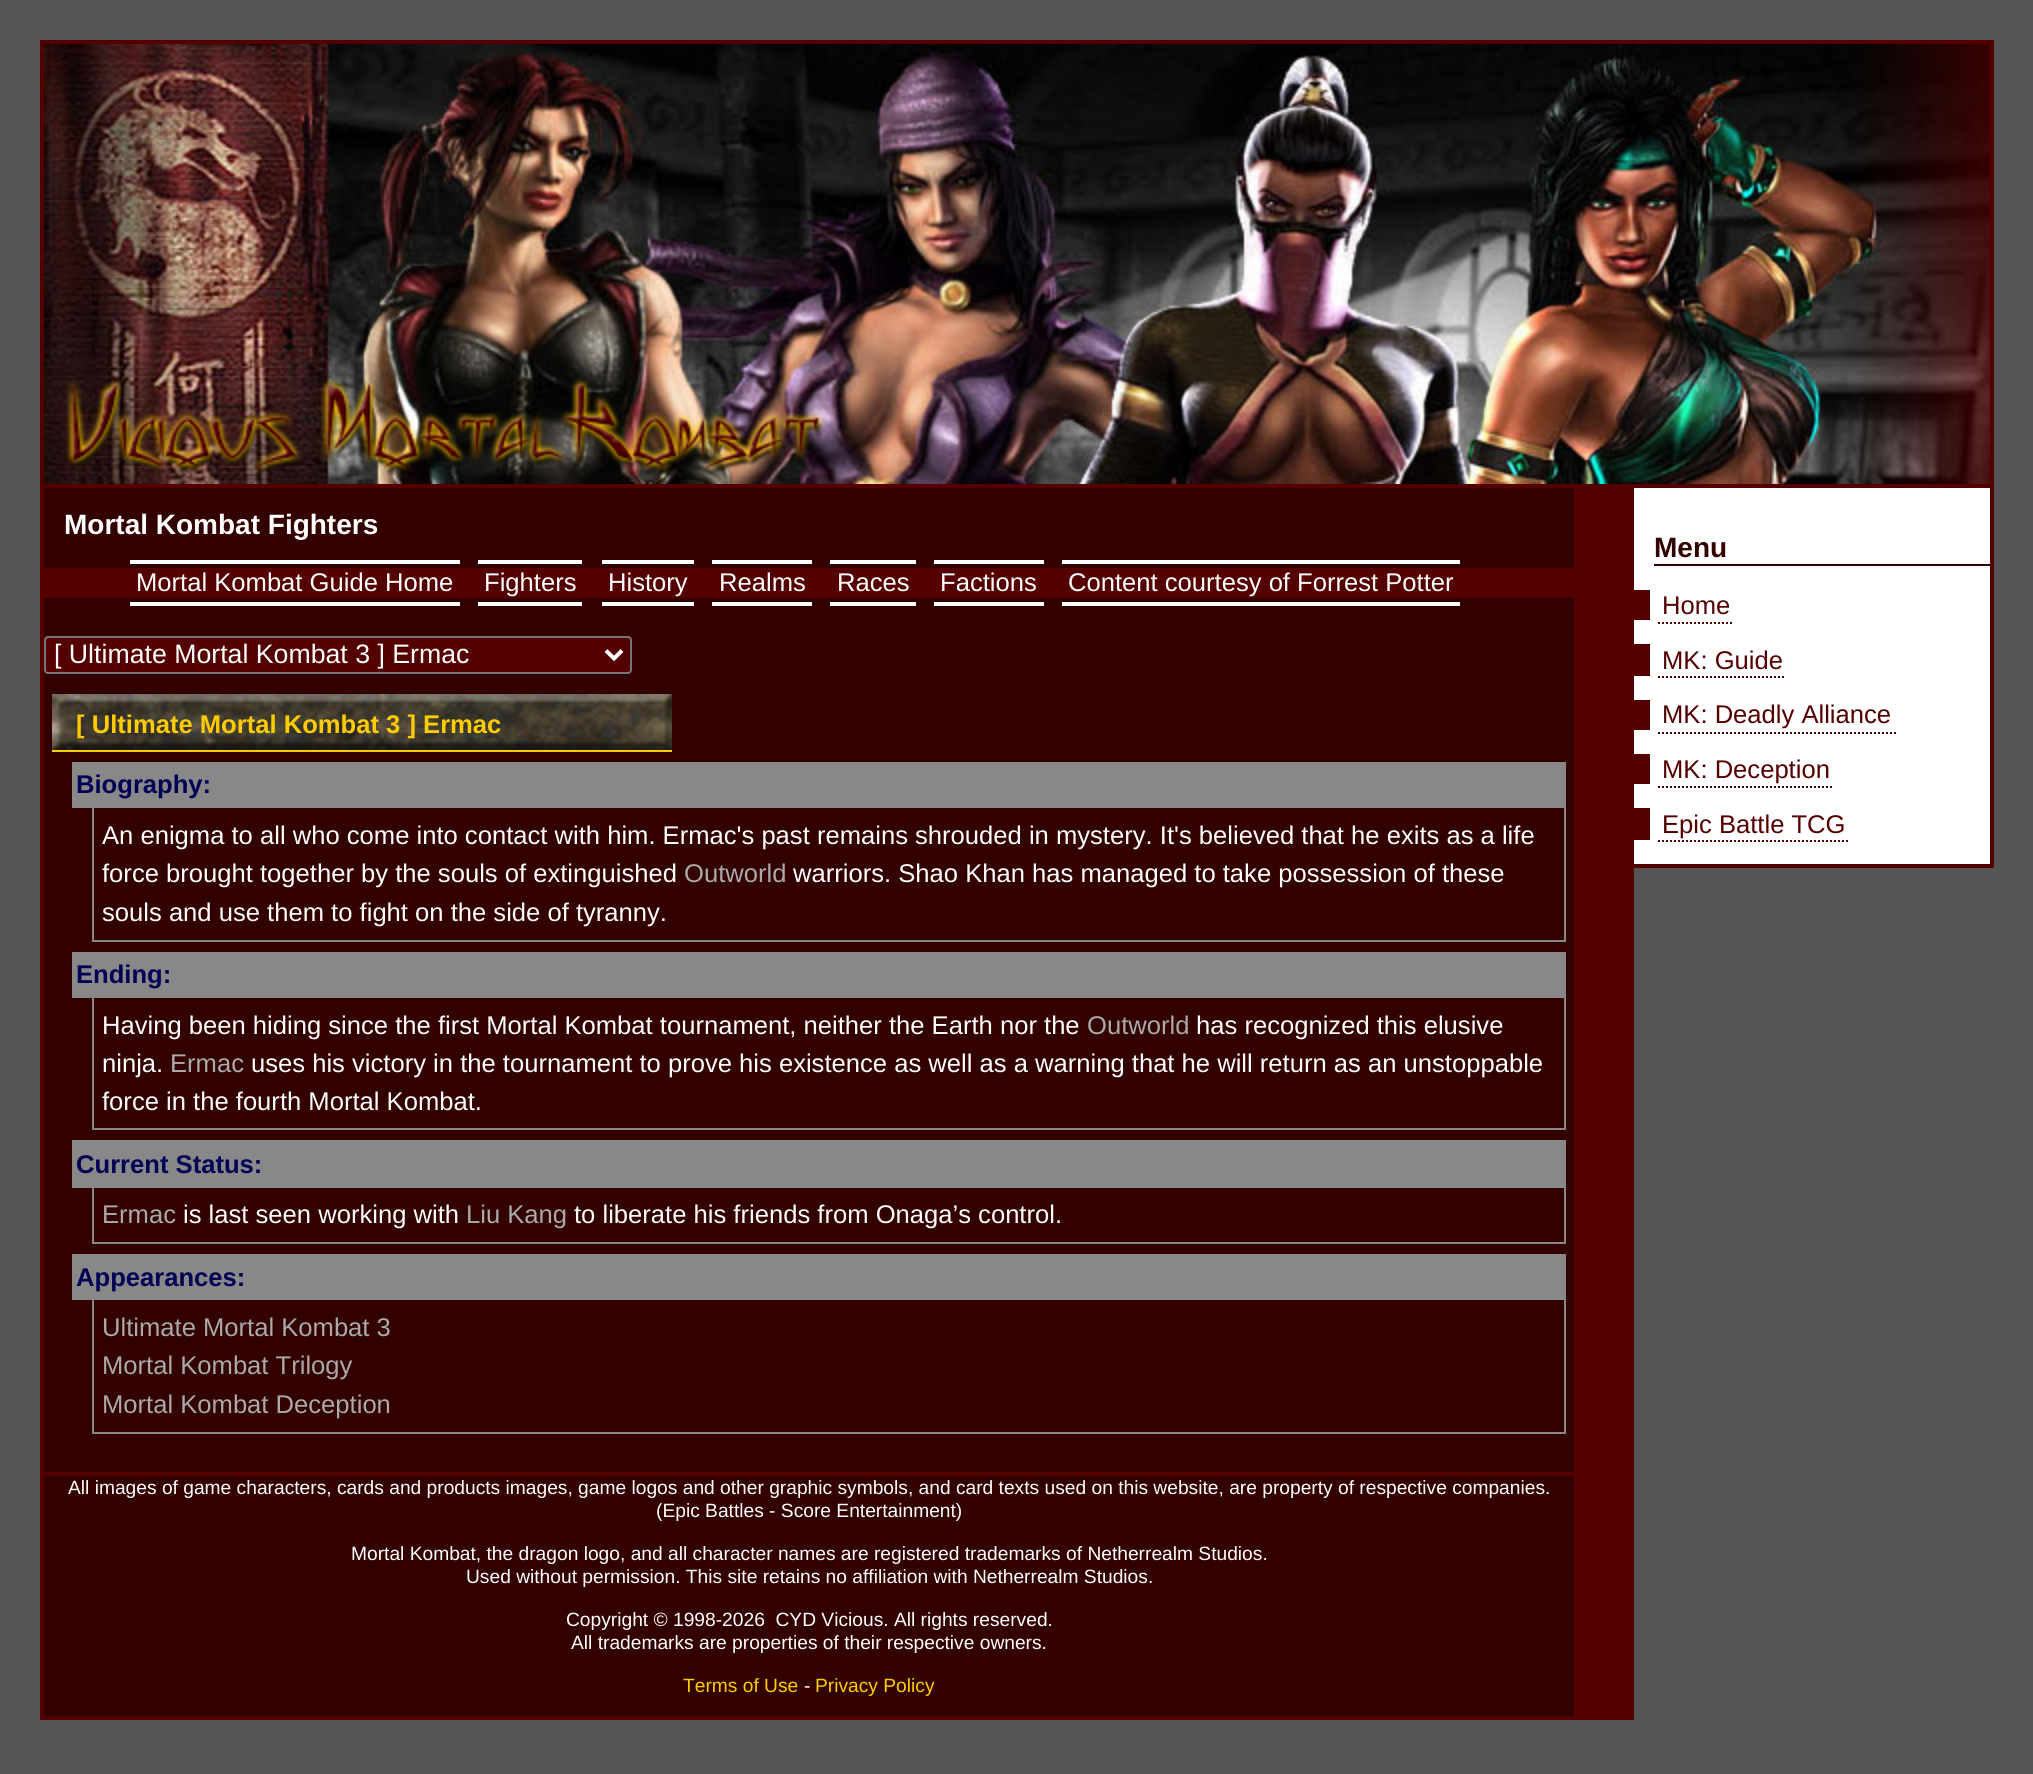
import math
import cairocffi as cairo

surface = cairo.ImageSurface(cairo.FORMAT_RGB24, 2033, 1774)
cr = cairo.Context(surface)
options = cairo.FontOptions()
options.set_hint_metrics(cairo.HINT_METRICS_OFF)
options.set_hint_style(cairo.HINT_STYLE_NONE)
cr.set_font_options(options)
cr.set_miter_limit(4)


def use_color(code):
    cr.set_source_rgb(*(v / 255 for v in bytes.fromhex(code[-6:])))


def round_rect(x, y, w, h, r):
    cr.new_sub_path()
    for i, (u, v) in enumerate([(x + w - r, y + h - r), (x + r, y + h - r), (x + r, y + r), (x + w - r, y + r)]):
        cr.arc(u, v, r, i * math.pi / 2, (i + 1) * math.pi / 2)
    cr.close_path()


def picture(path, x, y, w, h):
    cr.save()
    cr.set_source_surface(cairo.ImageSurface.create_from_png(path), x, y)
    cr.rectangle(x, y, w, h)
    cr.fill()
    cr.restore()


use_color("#555555")
cr.paint()
picture("img1.png", 44, 44, 1946, 440)
cr.rectangle(42, 42, 1950, 444)
use_color("#550000")
cr.set_line_width(4)
cr.stroke()
picture("img2.png", 66, 378, 758, 98)
use_color("#330000")
cr.rectangle(44, 488, 1530, 984)
cr.fill()
use_color("#550000")
cr.rectangle(1574, 488, 60, 984)
cr.fill()
cr.rectangle(40, 1472, 1594, 4)
cr.fill()
cr.rectangle(40, 488, 4, 988)
cr.fill()
cr.select_font_face("Liberation Sans", cairo.FONT_SLANT_NORMAL, cairo.FONT_WEIGHT_BOLD)
cr.set_font_size(28)
use_color("#ffffff")
cr.move_to(64, 534)
cr.show_text("Mortal Kombat Fighters")
use_color("#550000")
cr.rectangle(44, 568, 1530, 30)
cr.fill()
cr.select_font_face("Liberation Sans")
cr.set_font_size(25.6)
use_color("#ffffff")
cr.move_to(136, 591)
cr.show_text("Mortal Kombat Guide Home")
cr.rectangle(130, 560, 330, 4)
cr.fill()
cr.rectangle(130, 602, 330, 4)
cr.fill()
cr.move_to(484, 591)
cr.show_text("Fighters")
cr.rectangle(478, 560, 104, 4)
cr.fill()
cr.rectangle(478, 602, 104, 4)
cr.fill()
cr.move_to(608, 591)
cr.show_text("History")
cr.rectangle(602, 560, 92, 4)
cr.fill()
cr.rectangle(602, 602, 92, 4)
cr.fill()
cr.move_to(719, 591)
cr.show_text("Realms")
cr.rectangle(712, 560, 100, 4)
cr.fill()
cr.rectangle(712, 602, 100, 4)
cr.fill()
cr.move_to(837, 591)
cr.show_text("Races")
cr.rectangle(830, 560, 86, 4)
cr.fill()
cr.rectangle(830, 602, 86, 4)
cr.fill()
cr.move_to(940, 591)
cr.show_text("Factions")
cr.rectangle(934, 560, 110, 4)
cr.fill()
cr.rectangle(934, 602, 110, 4)
cr.fill()
cr.move_to(1068, 591)
cr.show_text("Content courtesy of Forrest Potter")
cr.rectangle(1062, 560, 398, 4)
cr.fill()
cr.rectangle(1062, 602, 398, 4)
cr.fill()
use_color("#550000")
round_rect(45, 637, 586, 36, 3)
cr.fill_preserve()
use_color("#767676")
cr.set_line_width(2)
cr.stroke()
cr.new_path()
cr.move_to(606, 650.5)
cr.line_to(614, 658.5)
cr.line_to(622, 650.5)
use_color("#ffffff")
cr.set_line_width(4)
cr.stroke()
cr.set_font_size(26.7)
cr.move_to(54, 663)
cr.show_text("[ Ultimate Mortal Kombat 3 ] Ermac")
picture("img3.png", 52, 694, 620, 56)
use_color("#ffcc00")
cr.rectangle(52, 750, 620, 2)
cr.fill()
cr.select_font_face("Liberation Sans", cairo.FONT_SLANT_NORMAL, cairo.FONT_WEIGHT_BOLD)
cr.set_font_size(25.6)
cr.move_to(76, 733)
cr.show_text("[ Ultimate Mortal Kombat 3 ] Ermac")
use_color("#888888")
cr.rectangle(72, 762, 1494, 46)
cr.fill()
use_color("#000055")
cr.move_to(76, 793)
cr.show_text("Biography:")
use_color("#888888")
cr.rectangle(1564, 808, 2, 134)
cr.fill()
cr.rectangle(92, 940, 1474, 2)
cr.fill()
cr.rectangle(92, 808, 2, 134)
cr.fill()
cr.select_font_face("Liberation Sans")
use_color("#ffffff")
cr.move_to(102, 844)
cr.show_text("An enigma to all who come into contact with him. Ermac's past remains shrouded in mystery. It's believed that he exits as a life")
cr.move_to(102, 882)
cr.show_text("force brought together by the souls of extinguished")
use_color("#aaaaaa")
cr.move_to(684, 882)
cr.show_text("Outworld")
use_color("#ffffff")
cr.move_to(793, 882)
cr.show_text("warriors. Shao Khan has managed to take possession of these")
cr.move_to(102, 921)
cr.show_text("souls and use them to fight on the side of tyranny.")
use_color("#888888")
cr.rectangle(72, 952, 1494, 46)
cr.fill()
cr.select_font_face("Liberation Sans", cairo.FONT_SLANT_NORMAL, cairo.FONT_WEIGHT_BOLD)
use_color("#000055")
cr.move_to(76, 983)
cr.show_text("Ending:")
use_color("#888888")
cr.rectangle(1564, 998, 2, 132)
cr.fill()
cr.rectangle(92, 1128, 1474, 2)
cr.fill()
cr.rectangle(92, 998, 2, 132)
cr.fill()
cr.select_font_face("Liberation Sans")
use_color("#ffffff")
cr.move_to(102, 1034)
cr.show_text("Having been hiding since the first Mortal Kombat tournament, neither the Earth nor the")
use_color("#aaaaaa")
cr.move_to(1087, 1034)
cr.show_text("Outworld")
use_color("#ffffff")
cr.move_to(1196, 1034)
cr.show_text("has recognized this elusive")
cr.move_to(102, 1072)
cr.show_text("ninja.")
use_color("#aaaaaa")
cr.move_to(170, 1072)
cr.show_text("Ermac")
use_color("#ffffff")
cr.move_to(251, 1072)
cr.show_text("uses his victory in the tournament to prove his existence as well as a warning that he will return as an unstoppable")
cr.move_to(102, 1110)
cr.show_text("force in the fourth Mortal Kombat.")
use_color("#888888")
cr.rectangle(72, 1140, 1494, 48)
cr.fill()
cr.select_font_face("Liberation Sans", cairo.FONT_SLANT_NORMAL, cairo.FONT_WEIGHT_BOLD)
use_color("#000055")
cr.move_to(76, 1173)
cr.show_text("Current Status:")
use_color("#888888")
cr.rectangle(1564, 1188, 2, 56)
cr.fill()
cr.rectangle(92, 1242, 1474, 2)
cr.fill()
cr.rectangle(92, 1188, 2, 56)
cr.fill()
cr.select_font_face("Liberation Sans")
use_color("#aaaaaa")
cr.move_to(102, 1223)
cr.show_text("Ermac")
use_color("#ffffff")
cr.move_to(183, 1223)
cr.show_text("is last seen working with")
use_color("#aaaaaa")
cr.move_to(466, 1223)
cr.show_text("Liu Kang")
use_color("#ffffff")
cr.move_to(574, 1223)
cr.show_text("to liberate his friends from Onaga’s control.")
use_color("#888888")
cr.rectangle(72, 1254, 1494, 46)
cr.fill()
cr.select_font_face("Liberation Sans", cairo.FONT_SLANT_NORMAL, cairo.FONT_WEIGHT_BOLD)
use_color("#000055")
cr.move_to(76, 1286)
cr.show_text("Appearances:")
use_color("#888888")
cr.rectangle(1564, 1300, 2, 134)
cr.fill()
cr.rectangle(92, 1432, 1474, 2)
cr.fill()
cr.rectangle(92, 1300, 2, 134)
cr.fill()
cr.select_font_face("Liberation Sans")
use_color("#aaaaaa")
cr.move_to(102, 1336)
cr.show_text("Ultimate Mortal Kombat 3")
cr.move_to(102, 1374)
cr.show_text("Mortal Kombat Trilogy")
cr.move_to(102, 1413)
cr.show_text("Mortal Kombat Deception")
use_color("#ffffff")
cr.rectangle(1634, 488, 356, 376)
cr.fill()
use_color("#550000")
cr.rectangle(1990, 488, 4, 380)
cr.fill()
cr.rectangle(1630, 864, 364, 4)
cr.fill()
use_color("#330000")
cr.rectangle(1654, 564, 336, 2)
cr.fill()
cr.select_font_face("Liberation Sans", cairo.FONT_SLANT_NORMAL, cairo.FONT_WEIGHT_BOLD)
cr.set_font_size(28)
cr.move_to(1654, 557)
cr.show_text("Menu")
use_color("#550000")
cr.rectangle(1634, 590, 16, 30)
cr.fill()
cr.select_font_face("Liberation Sans")
cr.set_font_size(25.6)
cr.move_to(1662, 614)
cr.show_text("Home")
cr.new_path()
cr.move_to(1658, 623)
cr.line_to(1734, 623)
cr.set_line_width(2)
cr.set_dash([2, 2])
cr.stroke()
cr.rectangle(1634, 644, 16, 32)
cr.fill()
cr.move_to(1662, 669)
cr.show_text("MK: Guide")
cr.new_path()
cr.move_to(1658, 677)
cr.line_to(1786, 677)
cr.stroke()
cr.rectangle(1634, 700, 16, 30)
cr.fill()
cr.move_to(1662, 723)
cr.show_text("MK: Deadly Alliance")
cr.new_path()
cr.move_to(1658, 733)
cr.line_to(1896, 733)
cr.stroke()
cr.rectangle(1634, 754, 16, 30)
cr.fill()
cr.move_to(1662, 778)
cr.show_text("MK: Deception")
cr.new_path()
cr.move_to(1658, 787)
cr.line_to(1834, 787)
cr.stroke()
cr.rectangle(1634, 808, 16, 32)
cr.fill()
cr.move_to(1662, 833)
cr.show_text("Epic Battle TCG")
cr.new_path()
cr.move_to(1658, 841)
cr.line_to(1850, 841)
cr.stroke()
use_color("#330000")
cr.rectangle(44, 1476, 1530, 240)
cr.fill()
use_color("#550000")
cr.rectangle(1574, 1476, 60, 240)
cr.fill()
cr.rectangle(40, 1716, 1594, 4)
cr.fill()
cr.rectangle(40, 1476, 4, 244)
cr.fill()
cr.set_font_size(19.2)
use_color("#ffffff")
cr.move_to(68, 1494)
cr.show_text("All images of game characters, cards and products images, game logos and other graphic symbols, and card texts used on this website, are property of respective companies.")
cr.move_to(656, 1517)
cr.show_text("(Epic Battles - Score Entertainment)")
cr.move_to(351, 1560)
cr.show_text("Mortal Kombat, the dragon logo, and all character names are registered trademarks of Netherrealm Studios.")
cr.move_to(466, 1583)
cr.show_text("Used without permission. This site retains no affiliation with Netherrealm Studios.")
cr.move_to(566, 1626)
cr.show_text("Copyright © 1998-2026  CYD Vicious. All rights reserved.")
cr.move_to(571, 1649)
cr.show_text("All trademarks are properties of their respective owners.")
use_color("#ffcc00")
cr.move_to(683, 1692)
cr.show_text("Terms of Use")
use_color("#ffffff")
cr.move_to(804, 1692)
cr.show_text("-")
use_color("#ffcc00")
cr.move_to(815, 1692)
cr.show_text("Privacy Policy")
surface.write_to_png("result.png")
